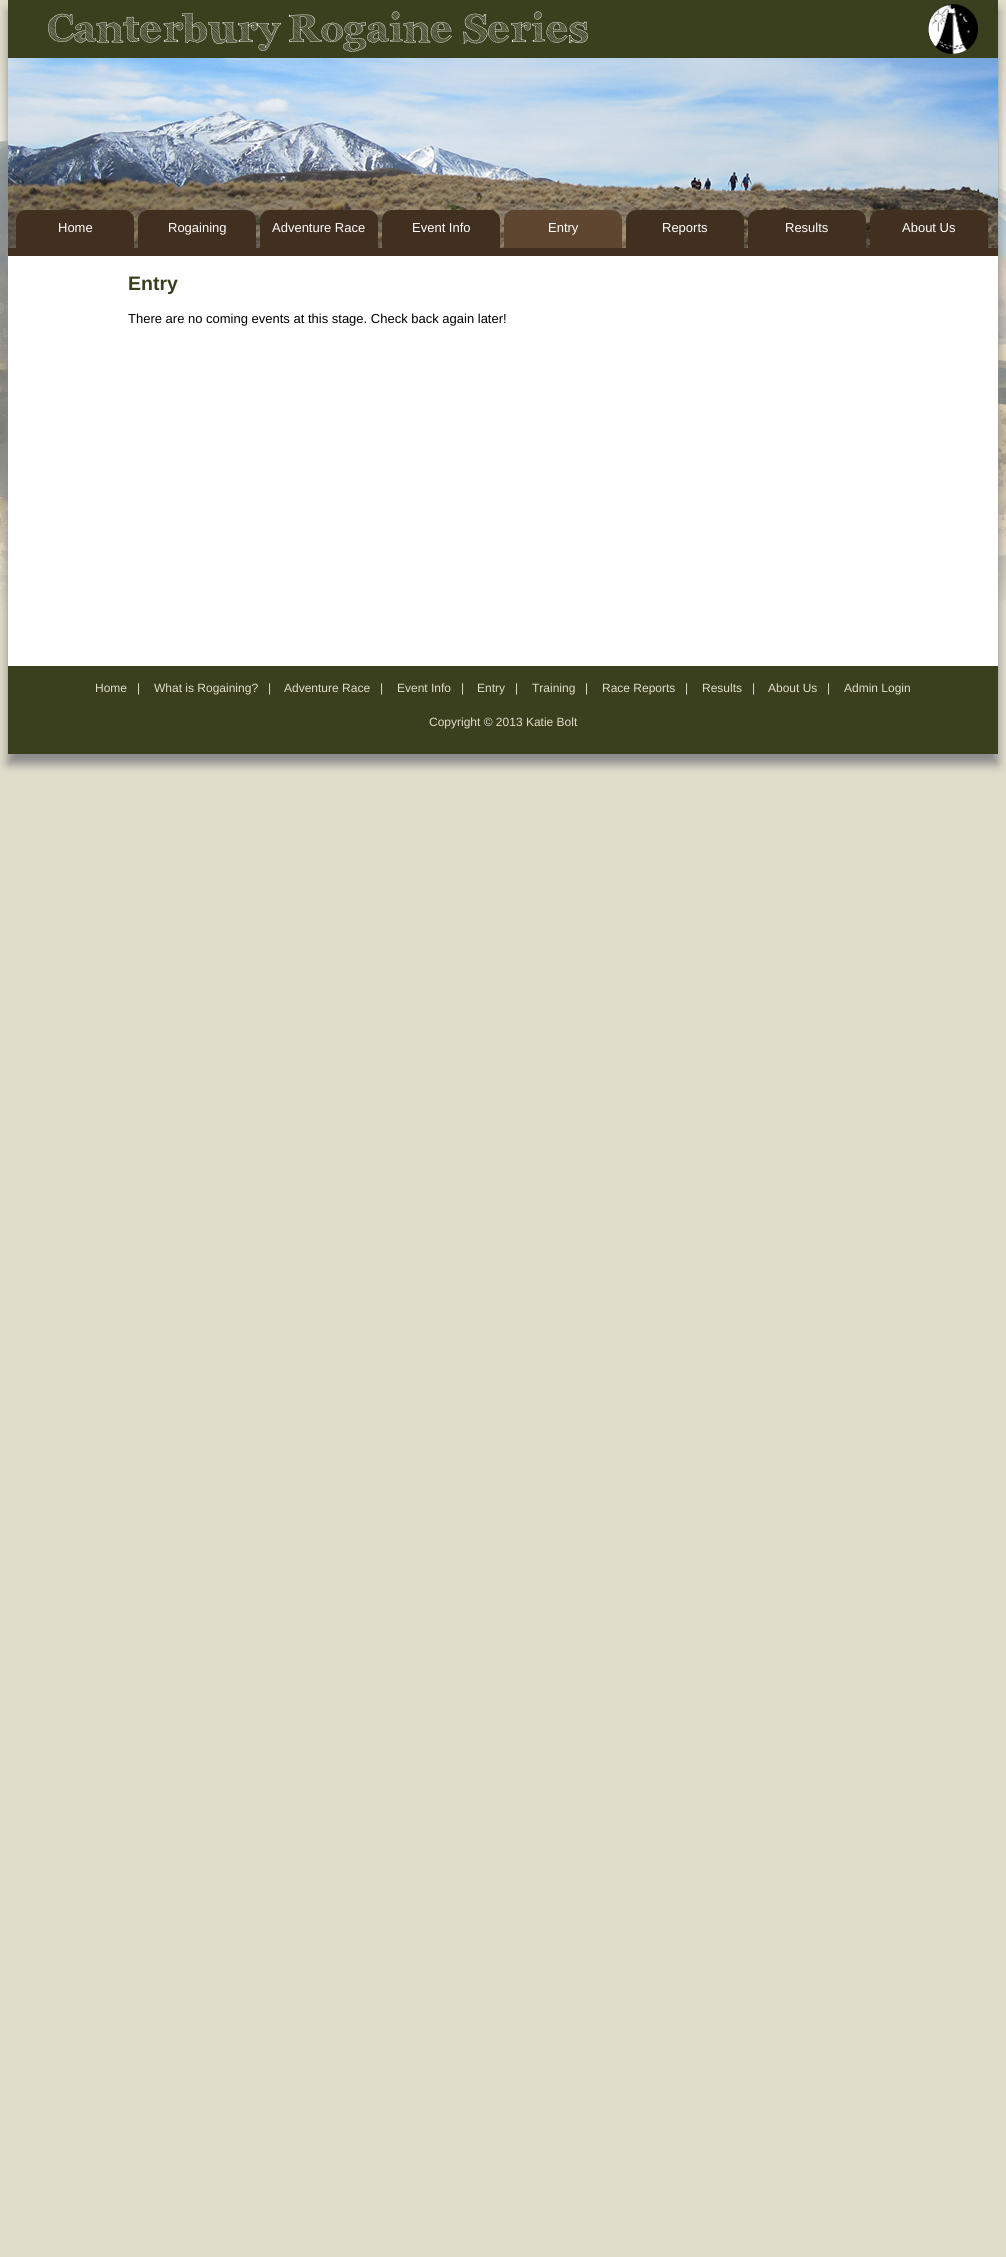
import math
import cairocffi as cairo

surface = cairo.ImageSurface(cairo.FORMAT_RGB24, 1006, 2257)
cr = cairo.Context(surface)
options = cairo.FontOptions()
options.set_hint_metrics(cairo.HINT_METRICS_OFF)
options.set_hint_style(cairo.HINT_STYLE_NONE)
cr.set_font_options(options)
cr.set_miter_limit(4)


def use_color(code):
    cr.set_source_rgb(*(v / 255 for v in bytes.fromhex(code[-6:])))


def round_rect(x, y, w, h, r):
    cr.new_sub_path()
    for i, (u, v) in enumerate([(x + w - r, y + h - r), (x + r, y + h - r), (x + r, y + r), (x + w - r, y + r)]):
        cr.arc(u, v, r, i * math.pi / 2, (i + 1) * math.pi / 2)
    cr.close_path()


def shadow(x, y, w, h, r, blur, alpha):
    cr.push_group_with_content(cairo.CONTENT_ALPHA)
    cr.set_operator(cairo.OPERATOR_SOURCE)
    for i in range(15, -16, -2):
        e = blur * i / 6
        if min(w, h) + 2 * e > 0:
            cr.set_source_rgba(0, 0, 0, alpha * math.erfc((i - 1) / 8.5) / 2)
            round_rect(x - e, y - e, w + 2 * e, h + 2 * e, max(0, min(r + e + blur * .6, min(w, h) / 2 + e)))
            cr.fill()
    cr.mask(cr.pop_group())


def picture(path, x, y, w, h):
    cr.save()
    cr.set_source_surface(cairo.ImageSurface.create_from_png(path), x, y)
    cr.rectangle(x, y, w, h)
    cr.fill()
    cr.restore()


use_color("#e0ddca")
cr.paint()
picture("img1.png", 0, 60, 1006, 550)
use_color("#888888")
shadow(8, 10, 990, 754, 0, 5, 1)
use_color("#3a3f1e")
cr.rectangle(8, 0, 990, 58)
cr.fill()
cr.select_font_face("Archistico")
cr.set_font_size(40)
use_color("#ffffff")
cr.move_to(48, 42)
cr.show_text("Canterbury Rogaine Series")
picture("img2.png", 928, 4, 50, 50)
picture("img3.png", 8, 58, 990, 190)
cr.rectangle(8, 256, 990, 410)
cr.fill()
use_color("#412f1f")
cr.rectangle(8, 248, 990, 8)
cr.fill()
cr.new_path()
cr.move_to(26, 210)
cr.line_to(124, 210)
cr.curve_to(129.5, 210, 134, 214.5, 134, 220)
cr.line_to(134, 248)
cr.line_to(16, 248)
cr.line_to(16, 220)
cr.curve_to(16, 214.5, 20.5, 210, 26, 210)
cr.close_path()
cr.fill()
cr.select_font_face("Liberation Sans")
cr.set_font_size(13)
use_color("#ffffff")
cr.move_to(58, 232)
cr.show_text("Home")
use_color("#412f1f")
cr.new_path()
cr.move_to(148, 210)
cr.line_to(246, 210)
cr.curve_to(251.5, 210, 256, 214.5, 256, 220)
cr.line_to(256, 248)
cr.line_to(138, 248)
cr.line_to(138, 220)
cr.curve_to(138, 214.5, 142.5, 210, 148, 210)
cr.close_path()
cr.fill()
use_color("#ffffff")
cr.move_to(168, 232)
cr.show_text("Rogaining")
use_color("#412f1f")
cr.new_path()
cr.move_to(270, 210)
cr.line_to(368, 210)
cr.curve_to(373.5, 210, 378, 214.5, 378, 220)
cr.line_to(378, 248)
cr.line_to(260, 248)
cr.line_to(260, 220)
cr.curve_to(260, 214.5, 264.5, 210, 270, 210)
cr.close_path()
cr.fill()
use_color("#ffffff")
cr.move_to(272, 232)
cr.show_text("Adventure Race")
use_color("#412f1f")
cr.new_path()
cr.move_to(392, 210)
cr.line_to(490, 210)
cr.curve_to(495.5, 210, 500, 214.5, 500, 220)
cr.line_to(500, 248)
cr.line_to(382, 248)
cr.line_to(382, 220)
cr.curve_to(382, 214.5, 386.5, 210, 392, 210)
cr.close_path()
cr.fill()
use_color("#ffffff")
cr.move_to(412, 232)
cr.show_text("Event Info")
use_color("#5e4630")
cr.new_path()
cr.move_to(514, 210)
cr.line_to(612, 210)
cr.curve_to(617.5, 210, 622, 214.5, 622, 220)
cr.line_to(622, 248)
cr.line_to(504, 248)
cr.line_to(504, 220)
cr.curve_to(504, 214.5, 508.5, 210, 514, 210)
cr.close_path()
cr.fill()
use_color("#ffffff")
cr.move_to(548, 232)
cr.show_text("Entry")
use_color("#412f1f")
cr.new_path()
cr.move_to(636, 210)
cr.line_to(734, 210)
cr.curve_to(739.5, 210, 744, 214.5, 744, 220)
cr.line_to(744, 248)
cr.line_to(626, 248)
cr.line_to(626, 220)
cr.curve_to(626, 214.5, 630.5, 210, 636, 210)
cr.close_path()
cr.fill()
use_color("#ffffff")
cr.move_to(662, 232)
cr.show_text("Reports")
use_color("#412f1f")
cr.new_path()
cr.move_to(758, 210)
cr.line_to(856, 210)
cr.curve_to(861.5, 210, 866, 214.5, 866, 220)
cr.line_to(866, 248)
cr.line_to(748, 248)
cr.line_to(748, 220)
cr.curve_to(748, 214.5, 752.5, 210, 758, 210)
cr.close_path()
cr.fill()
use_color("#ffffff")
cr.move_to(785, 232)
cr.show_text("Results")
use_color("#412f1f")
cr.new_path()
cr.move_to(880, 210)
cr.line_to(978, 210)
cr.curve_to(983.5, 210, 988, 214.5, 988, 220)
cr.line_to(988, 248)
cr.line_to(870, 248)
cr.line_to(870, 220)
cr.curve_to(870, 214.5, 874.5, 210, 880, 210)
cr.close_path()
cr.fill()
use_color("#ffffff")
cr.move_to(902, 232)
cr.show_text("About Us")
cr.select_font_face("Liberation Sans", cairo.FONT_SLANT_NORMAL, cairo.FONT_WEIGHT_BOLD)
cr.set_font_size(19.5)
use_color("#3a3f1e")
cr.move_to(128, 290)
cr.show_text("Entry")
cr.select_font_face("Liberation Sans")
cr.set_font_size(13)
use_color("#000000")
cr.move_to(128, 323)
cr.show_text("There are no coming events at this stage. Check back again later!")
use_color("#3a3f1e")
cr.rectangle(8, 666, 990, 88)
cr.fill()
cr.set_font_size(12)
use_color("#e0ddca")
cr.move_to(95, 692)
cr.show_text("Home")
cr.move_to(137, 692)
cr.show_text("|")
cr.move_to(154, 692)
cr.show_text("What is Rogaining?")
cr.move_to(268, 692)
cr.show_text("|")
cr.move_to(284, 692)
cr.show_text("Adventure Race")
cr.move_to(380, 692)
cr.show_text("|")
cr.move_to(397, 692)
cr.show_text("Event Info")
cr.move_to(461, 692)
cr.show_text("|")
cr.move_to(477, 692)
cr.show_text("Entry")
cr.move_to(515, 692)
cr.show_text("|")
cr.move_to(532, 692)
cr.show_text("Training")
cr.move_to(585, 692)
cr.show_text("|")
cr.move_to(602, 692)
cr.show_text("Race Reports")
cr.move_to(685, 692)
cr.show_text("|")
cr.move_to(702, 692)
cr.show_text("Results")
cr.move_to(752, 692)
cr.show_text("|")
cr.move_to(768, 692)
cr.show_text("About Us")
cr.move_to(827, 692)
cr.show_text("|")
cr.move_to(844, 692)
cr.show_text("Admin Login")
cr.move_to(429, 726)
cr.show_text("Copyright © 2013 Katie Bolt")
surface.write_to_png("result.png")
